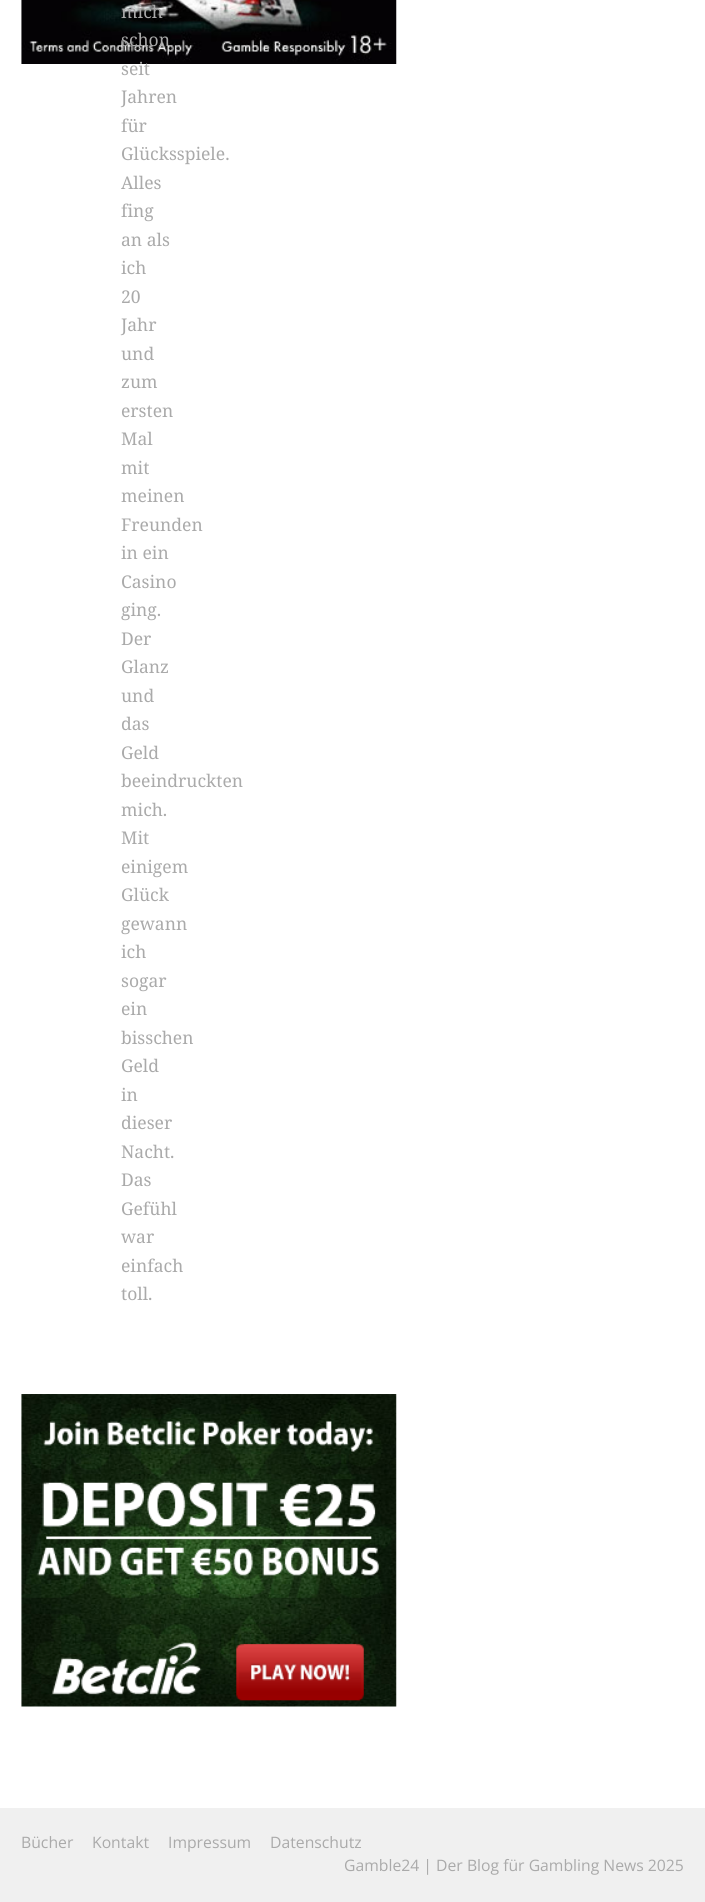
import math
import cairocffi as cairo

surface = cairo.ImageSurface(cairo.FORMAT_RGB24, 705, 1902)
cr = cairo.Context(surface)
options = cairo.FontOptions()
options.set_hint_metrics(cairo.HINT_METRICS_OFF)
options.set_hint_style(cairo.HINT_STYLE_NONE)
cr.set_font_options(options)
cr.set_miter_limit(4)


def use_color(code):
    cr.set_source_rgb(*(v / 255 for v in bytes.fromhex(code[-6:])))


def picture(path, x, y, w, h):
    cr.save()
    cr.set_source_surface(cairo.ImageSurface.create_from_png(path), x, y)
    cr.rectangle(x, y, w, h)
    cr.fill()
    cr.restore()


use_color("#ffffff")
cr.paint()
picture("img1.png", 21, 0, 376, 64)
cr.select_font_face("Noto Serif")
cr.set_font_size(17.5)
use_color("#aaaaaa")
cr.move_to(121, 18)
cr.show_text("mich")
cr.move_to(121, 46)
cr.show_text("schon")
cr.move_to(121, 75)
cr.show_text("seit")
cr.move_to(121, 103)
cr.show_text("Jahren")
cr.move_to(121, 132)
cr.show_text("für")
cr.move_to(121, 160)
cr.show_text("Glücksspiele.")
cr.move_to(121, 189)
cr.show_text("Alles")
cr.move_to(121, 217)
cr.show_text("fing")
cr.move_to(121, 246)
cr.show_text("an als")
cr.move_to(121, 274)
cr.show_text("ich")
cr.move_to(121, 303)
cr.show_text("20")
cr.move_to(121, 331)
cr.show_text("Jahr")
cr.move_to(121, 360)
cr.show_text("und")
cr.move_to(121, 388)
cr.show_text("zum")
cr.move_to(121, 417)
cr.show_text("ersten")
cr.move_to(121, 445)
cr.show_text("Mal")
cr.move_to(121, 474)
cr.show_text("mit")
cr.move_to(121, 502)
cr.show_text("meinen")
cr.move_to(121, 531)
cr.show_text("Freunden")
cr.move_to(121, 559)
cr.show_text("in ein")
cr.move_to(121, 588)
cr.show_text("Casino")
cr.move_to(121, 616)
cr.show_text("ging.")
cr.move_to(121, 645)
cr.show_text("Der")
cr.move_to(121, 673)
cr.show_text("Glanz")
cr.move_to(121, 702)
cr.show_text("und")
cr.move_to(121, 730)
cr.show_text("das")
cr.move_to(121, 759)
cr.show_text("Geld")
cr.move_to(121, 787)
cr.show_text("beeindruckten")
cr.move_to(121, 816)
cr.show_text("mich.")
cr.move_to(121, 844)
cr.show_text("Mit")
cr.move_to(121, 873)
cr.show_text("einigem")
cr.move_to(121, 901)
cr.show_text("Glück")
cr.move_to(121, 930)
cr.show_text("gewann")
cr.move_to(121, 958)
cr.show_text("ich")
cr.move_to(121, 987)
cr.show_text("sogar")
cr.move_to(121, 1015)
cr.show_text("ein")
cr.move_to(121, 1044)
cr.show_text("bisschen")
cr.move_to(121, 1072)
cr.show_text("Geld")
cr.move_to(121, 1101)
cr.show_text("in")
cr.move_to(121, 1129)
cr.show_text("dieser")
cr.move_to(121, 1158)
cr.show_text("Nacht.")
cr.move_to(121, 1186)
cr.show_text("Das")
cr.move_to(121, 1215)
cr.show_text("Gefühl")
cr.move_to(121, 1243)
cr.show_text("war")
cr.move_to(121, 1272)
cr.show_text("einfach")
cr.move_to(121, 1300)
cr.show_text("toll.")
picture("img2.png", 21, 1394, 376, 313)
use_color("#f0f0f0")
cr.rectangle(0, 1808, 705, 94)
cr.fill()
cr.select_font_face("Open Sans")
cr.set_font_size(15.75)
use_color("#aaaaaa")
cr.move_to(21, 1848)
cr.show_text("Bücher")
cr.move_to(92, 1848)
cr.show_text("Kontakt")
cr.move_to(168, 1848)
cr.show_text("Impressum")
cr.move_to(270, 1848)
cr.show_text("Datenschutz")
cr.move_to(344, 1871)
cr.show_text("Gamble24 | Der Blog für Gambling News 2025")
surface.write_to_png("result.png")
